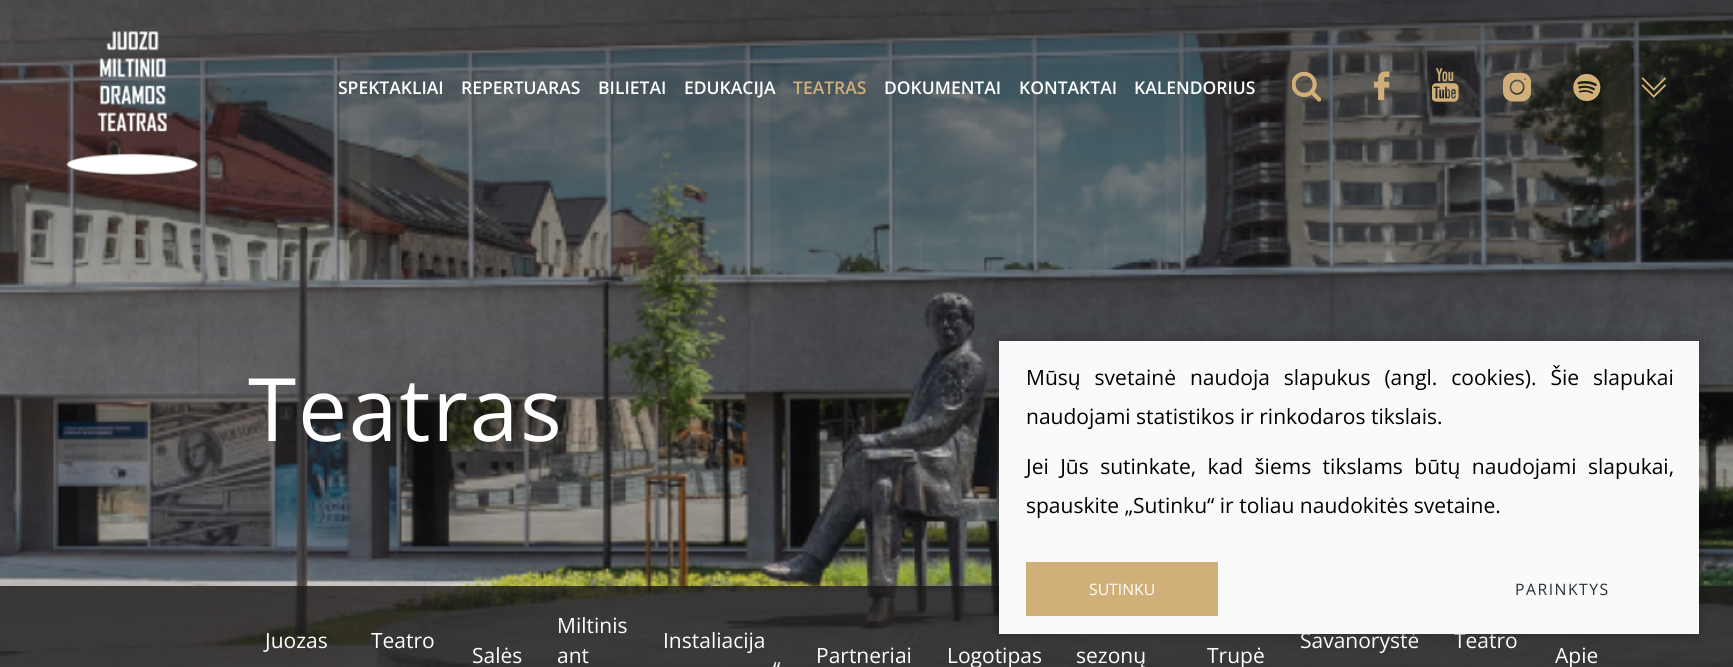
import math
import cairocffi as cairo

surface = cairo.ImageSurface(cairo.FORMAT_RGB24, 1733, 667)
cr = cairo.Context(surface)
options = cairo.FontOptions()
options.set_hint_metrics(cairo.HINT_METRICS_OFF)
options.set_hint_style(cairo.HINT_STYLE_NONE)
cr.set_font_options(options)
cr.set_miter_limit(4)


def use_color(code):
    cr.set_source_rgb(*(v / 255 for v in bytes.fromhex(code[-6:])))


def spaced_text(x, y, s, letter, word):
    cr.move_to(x, y)
    for ch in s:
        cr.show_text(ch)
        cr.rel_move_to(letter + word * (ch == ' '), 0)


def round_rect(x, y, w, h, r):
    cr.new_sub_path()
    for i, (u, v) in enumerate([(x + w - r, y + h - r), (x + r, y + h - r), (x + r, y + r), (x + w - r, y + r)]):
        cr.arc(u, v, r, i * math.pi / 2, (i + 1) * math.pi / 2)
    cr.close_path()


def shadow(x, y, w, h, r, blur, alpha):
    cr.push_group_with_content(cairo.CONTENT_ALPHA)
    cr.set_operator(cairo.OPERATOR_SOURCE)
    for i in range(15, -16, -2):
        e = blur * i / 6
        if min(w, h) + 2 * e > 0:
            cr.set_source_rgba(0, 0, 0, alpha * math.erfc((i - 1) / 8.5) / 2)
            round_rect(x - e, y - e, w + 2 * e, h + 2 * e, max(0, min(r + e + blur * .6, min(w, h) / 2 + e)))
            cr.fill()
    cr.mask(cr.pop_group())


def picture(path, x, y, w, h):
    cr.save()
    cr.set_source_surface(cairo.ImageSurface.create_from_png(path), x, y)
    cr.rectangle(x, y, w, h)
    cr.fill()
    cr.restore()


use_color("#ffffff")
cr.paint()
picture("img8.png", 0, 0, 1733, 667)
picture("img1.png", 66, 31, 132, 144)
cr.select_font_face("Open Sans SemiBold")
cr.set_font_size(17.5)
use_color("#ffffff")
cr.move_to(338, 94)
cr.show_text("SPEKTAKLIAI")
cr.move_to(461, 94)
cr.show_text("REPERTUARAS")
cr.move_to(598, 94)
cr.show_text("BILIETAI")
cr.move_to(684, 94)
cr.show_text("EDUKACIJA")
use_color("#d1af78")
cr.move_to(793, 94)
cr.show_text("TEATRAS")
use_color("#ffffff")
cr.move_to(884, 94)
cr.show_text("DOKUMENTAI")
cr.move_to(1019, 94)
cr.show_text("KONTAKTAI")
cr.move_to(1134, 94)
cr.show_text("KALENDORIUS")
picture("img2.png", 1292, 72, 29, 30)
picture("img3.png", 1374, 71, 16, 30)
picture("img4.png", 1432, 68, 27, 34)
picture("img5.png", 1503, 72, 28, 30)
picture("img6.png", 1573, 73, 28, 29)
picture("img7.png", 1641, 77, 25, 21)
cr.select_font_face("Open Sans")
cr.set_font_size(87.5)
spaced_text(248, 441, "Teatras", 1.75, 0)
cr.set_source_rgba(0.098, 0.094, 0.094, 0.8)
cr.rectangle(0, 586, 1733, 81)
cr.fill()
cr.set_font_size(21)
use_color("#ffffff")
cr.move_to(265, 648)
cr.show_text("Juozas")
cr.move_to(371, 648)
cr.show_text("Teatro")
cr.move_to(557, 633)
cr.show_text("Miltinis")
cr.move_to(557, 663)
cr.show_text("ant")
cr.move_to(663, 648)
cr.show_text("Instaliacija")
cr.move_to(773, 677)
cr.show_text("“")
cr.move_to(1300, 648)
cr.show_text("Savanorystė")
cr.move_to(1454, 648)
cr.show_text("Teatro")
cr.move_to(472, 663)
cr.show_text("Salės")
cr.move_to(816, 663)
cr.show_text("Partneriai")
cr.move_to(947, 663)
cr.show_text("Logotipas")
cr.move_to(1076, 663)
cr.show_text("sezonų")
cr.move_to(1207, 663)
cr.show_text("Trupė")
cr.move_to(1555, 663)
cr.show_text("Apie")
use_color("#000000")
shadow(999, 341, 700, 293, 0, 6, 0.25)
use_color("#fafafa")
cr.rectangle(999, 341, 700, 293)
cr.fill()
use_color("#000000")
spaced_text(1026, 385, "Mūsų svetainė naudoja slapukus (angl. cookies). Šie slapukai", 0, 8.5)
cr.move_to(1026, 424)
cr.show_text("naudojami statistikos ir rinkodaros tikslais.")
spaced_text(1026, 474, "Jei Jūs sutinkate, kad šiems tikslams būtų naudojami slapukai,", 0, 6)
cr.move_to(1026, 513)
cr.show_text("spauskite „Sutinku“ ir toliau naudokitės svetaine.")
use_color("#d1af78")
cr.rectangle(1026, 562, 192, 54)
cr.fill()
cr.set_font_size(15.75)
use_color("#ffffff")
cr.move_to(1089, 595)
cr.show_text("SUTINKU")
use_color("#263238")
spaced_text(1515, 595, "PARINKTYS", 1.5, 0)
surface.write_to_png("result.png")
